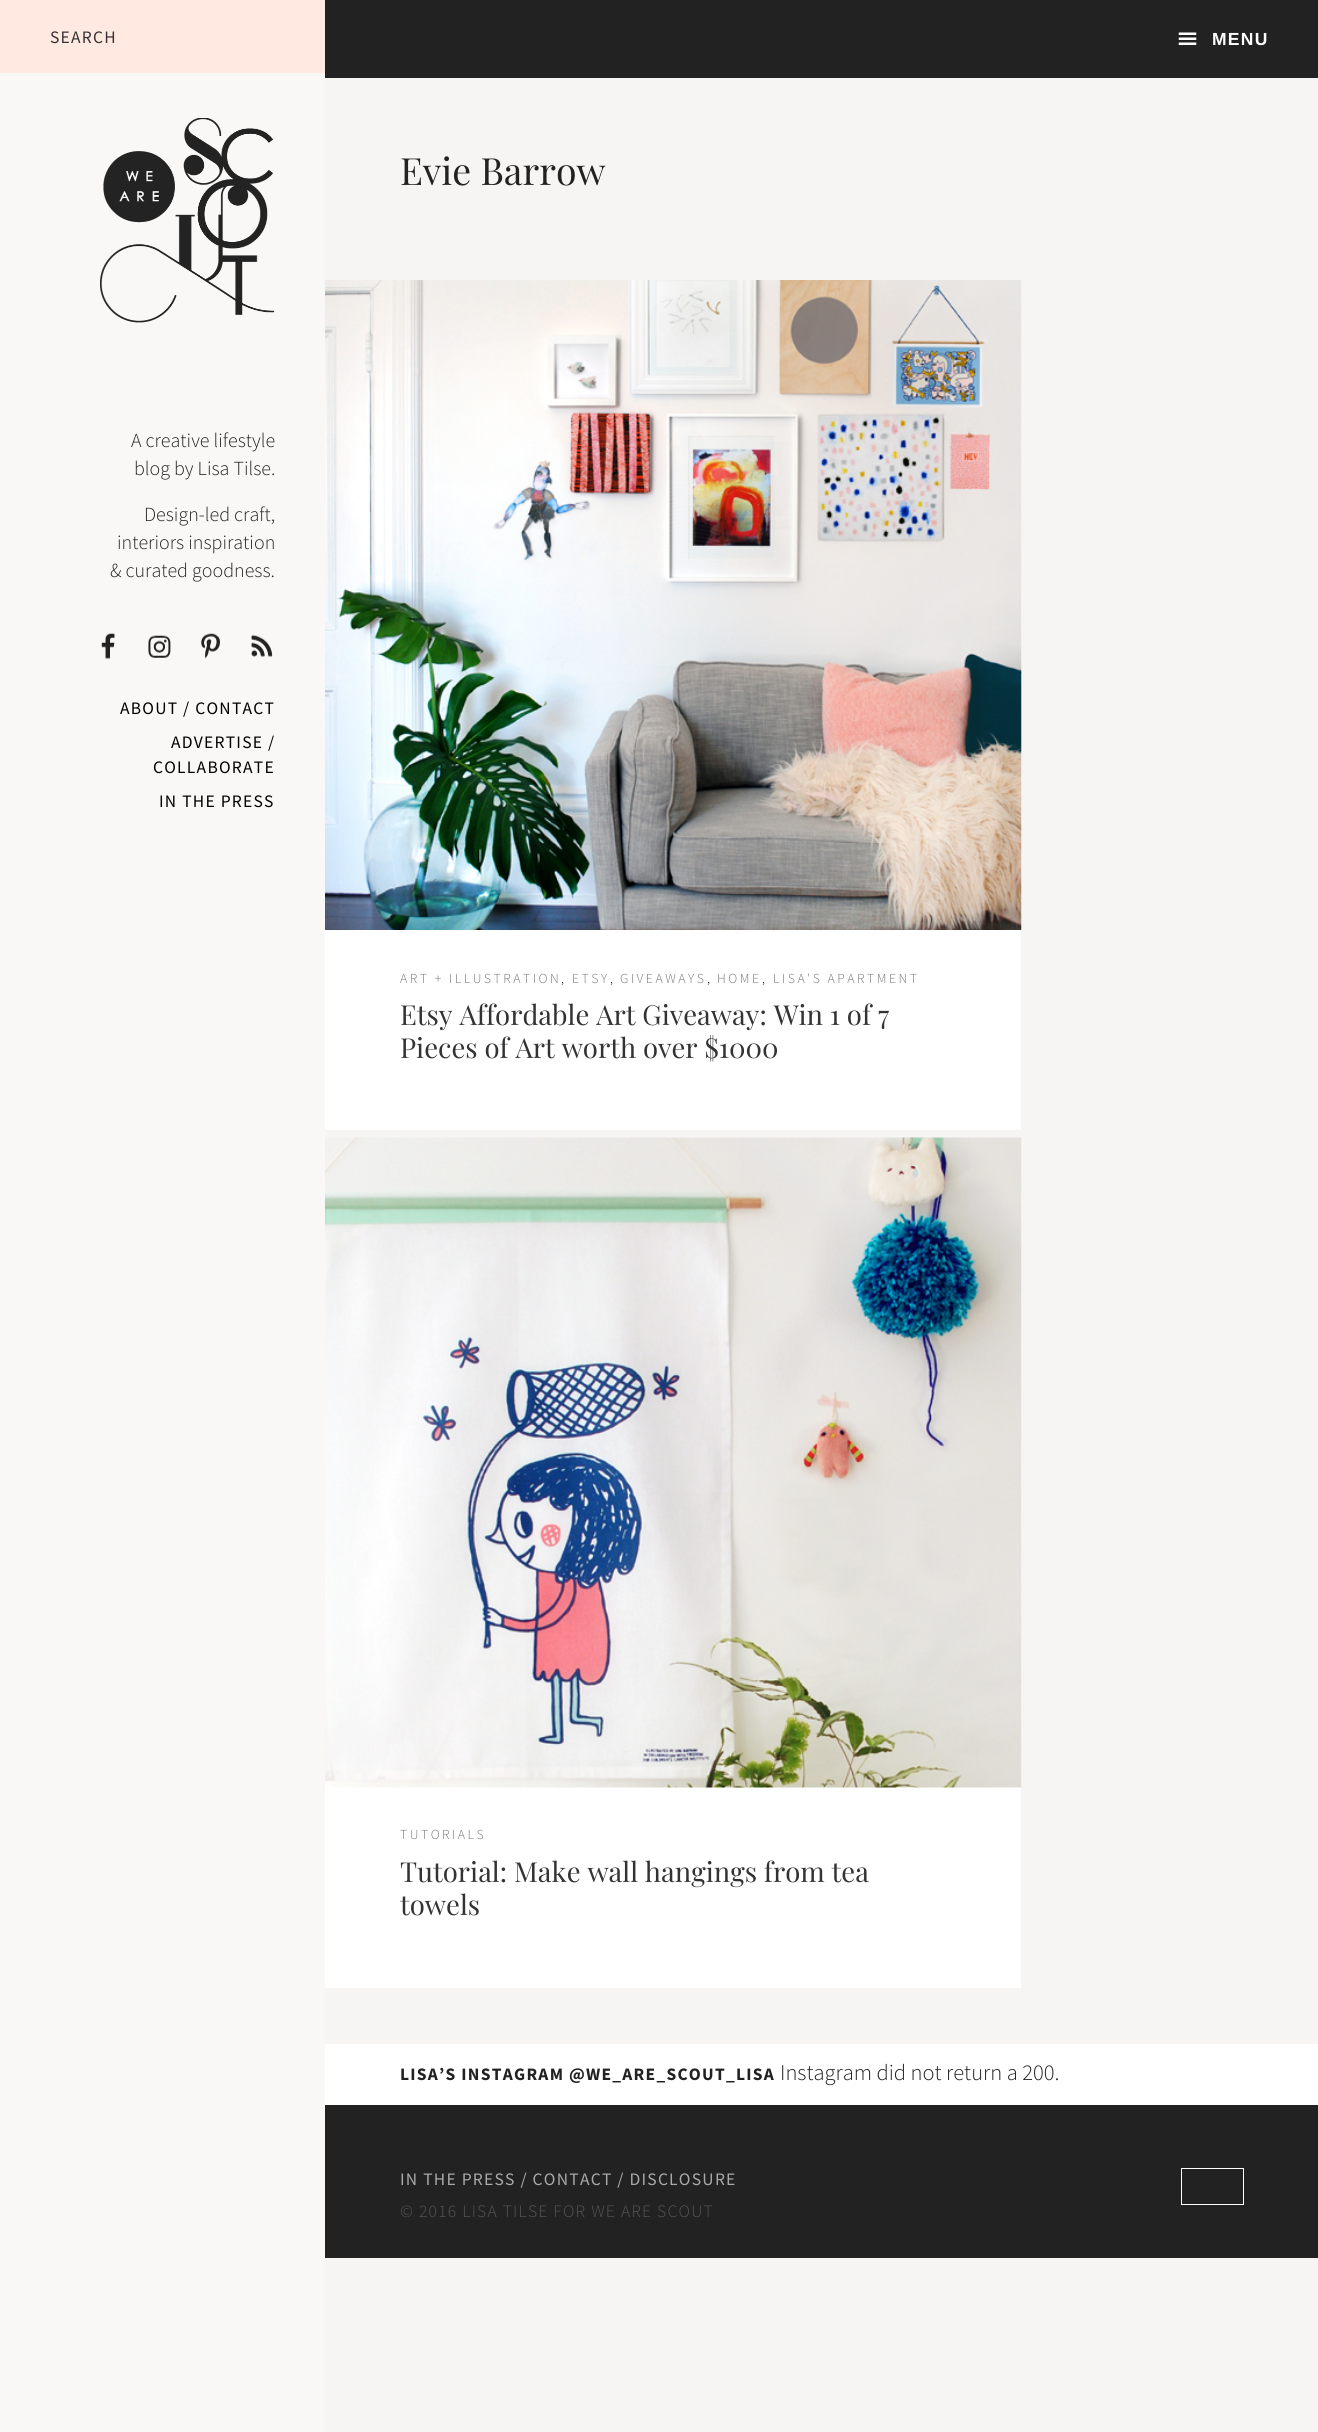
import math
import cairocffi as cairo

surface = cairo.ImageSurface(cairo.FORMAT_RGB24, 1318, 2432)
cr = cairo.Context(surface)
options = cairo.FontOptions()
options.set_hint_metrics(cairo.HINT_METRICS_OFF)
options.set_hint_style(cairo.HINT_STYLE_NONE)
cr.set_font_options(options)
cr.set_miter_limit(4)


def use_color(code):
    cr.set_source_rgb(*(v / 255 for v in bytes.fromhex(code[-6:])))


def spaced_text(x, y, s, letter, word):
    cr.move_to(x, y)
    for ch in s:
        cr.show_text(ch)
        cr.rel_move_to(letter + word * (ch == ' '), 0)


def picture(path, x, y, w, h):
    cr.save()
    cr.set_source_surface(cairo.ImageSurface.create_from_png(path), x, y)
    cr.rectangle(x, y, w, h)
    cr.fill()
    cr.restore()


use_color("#f6f5f4")
cr.paint()
use_color("#f9f8f7")
cr.rectangle(0, 73, 325, 2359)
cr.fill()
use_color("#ffe9e1")
cr.rectangle(0, 0, 325, 73)
cr.fill()
cr.select_font_face("Source Sans Pro")
cr.set_font_size(17.5)
use_color("#333333")
spaced_text(50, 43, "SEARCH", 1.25, 0)
picture("img1.png", 100, 118, 175, 205)
cr.select_font_face("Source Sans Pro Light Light")
cr.set_font_size(20)
use_color("#222222")
cr.move_to(131, 447)
cr.show_text("A creative lifestyle")
cr.move_to(134, 475)
cr.show_text("blog by Lisa Tilse.")
cr.move_to(144, 521)
cr.show_text("Design-led craft,")
cr.move_to(117, 549)
cr.show_text("interiors inspiration")
cr.move_to(110, 577)
cr.show_text("& curated goodness.")
picture("img2.png", 101, 633, 14, 26)
picture("img3.png", 148, 635, 23, 23)
picture("img4.png", 201, 633, 19, 26)
picture("img5.png", 251, 634, 22, 23)
cr.select_font_face("Source Sans Pro")
cr.set_font_size(17.5)
use_color("#000000")
spaced_text(120, 714, "ABOUT / CONTACT", 1.25, 0)
spaced_text(171, 748, "ADVERTISE /", 1.25, 0)
spaced_text(153, 773, "COLLABORATE", 1.25, 0)
spaced_text(159, 807, "IN THE PRESS", 1.25, 0)
cr.select_font_face("Playfair Display")
cr.set_font_size(37.5)
use_color("#222222")
cr.move_to(400, 185)
cr.show_text("Evie Barrow")
use_color("#ffffff")
cr.rectangle(325, 930, 696, 200)
cr.fill()
picture("img6.png", 325, 280, 697, 650)
cr.select_font_face("Source Sans Pro Light Light")
cr.set_font_size(13.75)
use_color("#777777")
spaced_text(400, 983, "ART + ILLUSTRATION", 2.5, 0)
use_color("#222222")
spaced_text(561, 983, ",", 2.5, 0)
use_color("#777777")
spaced_text(572, 983, "ETSY", 2.5, 0)
use_color("#222222")
spaced_text(610, 983, ",", 2.5, 0)
use_color("#777777")
spaced_text(620, 983, "GIVEAWAYS", 2.5, 0)
use_color("#222222")
spaced_text(707, 983, ",", 2.5, 0)
use_color("#777777")
spaced_text(717, 983, "HOME", 2.5, 0)
use_color("#222222")
spaced_text(762, 983, ",", 2.5, 0)
use_color("#777777")
spaced_text(773, 983, "LISA'S APARTMENT", 2.5, 0)
cr.select_font_face("Playfair Display")
cr.set_font_size(27.5)
use_color("#333333")
cr.move_to(400, 1025)
cr.show_text("Etsy Affordable Art Giveaway: Win 1 of 7")
cr.move_to(400, 1058)
cr.show_text("Pieces of Art worth over $1000")
use_color("#ffffff")
cr.rectangle(325, 1787, 696, 201)
cr.fill()
picture("img7.png", 325, 1137, 697, 651)
cr.select_font_face("Source Sans Pro Light Light")
cr.set_font_size(13.75)
use_color("#777777")
spaced_text(400, 1839, "TUTORIALS", 2.5, 0)
cr.select_font_face("Playfair Display")
cr.set_font_size(27.5)
use_color("#333333")
cr.move_to(400, 1882)
cr.show_text("Tutorial: Make wall hangings from tea")
cr.move_to(400, 1915)
cr.show_text("towels")
use_color("#ffffff")
cr.rectangle(325, 2044, 993, 61)
cr.fill()
cr.select_font_face("Source Sans Pro", cairo.FONT_SLANT_NORMAL, cairo.FONT_WEIGHT_BOLD)
cr.set_font_size(17.5)
use_color("#222222")
spaced_text(400, 2080, "LISA’S INSTAGRAM @WE_ARE_SCOUT_LISA", 1.25, 0)
cr.select_font_face("Source Sans Pro Light Light")
cr.set_font_size(22.5)
cr.move_to(780, 2080)
cr.show_text("Instagram did not return a 200.")
cr.rectangle(325, 2105, 993, 153)
cr.fill()
cr.select_font_face("Source Sans Pro")
cr.set_font_size(17.5)
use_color("#aaaaaa")
spaced_text(400, 2185, "IN THE PRESS / CONTACT / DISCLOSURE", 1.25, 0)
cr.rectangle(1181.5, 2168.5, 62, 36)
use_color("#ffffff")
cr.set_line_width(1)
cr.stroke()
cr.select_font_face("Source Sans Pro Light Light")
use_color("#555555")
spaced_text(400, 2217, "© 2016 LISA TILSE FOR WE ARE SCOUT", 1.25, 0)
use_color("#222222")
cr.rectangle(325, 0, 993, 78)
cr.fill()
picture("img8.png", 1178, 32, 19, 13)
cr.select_font_face("Liberation Sans", cairo.FONT_SLANT_NORMAL, cairo.FONT_WEIGHT_BOLD)
use_color("#ffffff")
spaced_text(1212, 45, "MENU", 1.25, 0)
surface.write_to_png("result.png")
